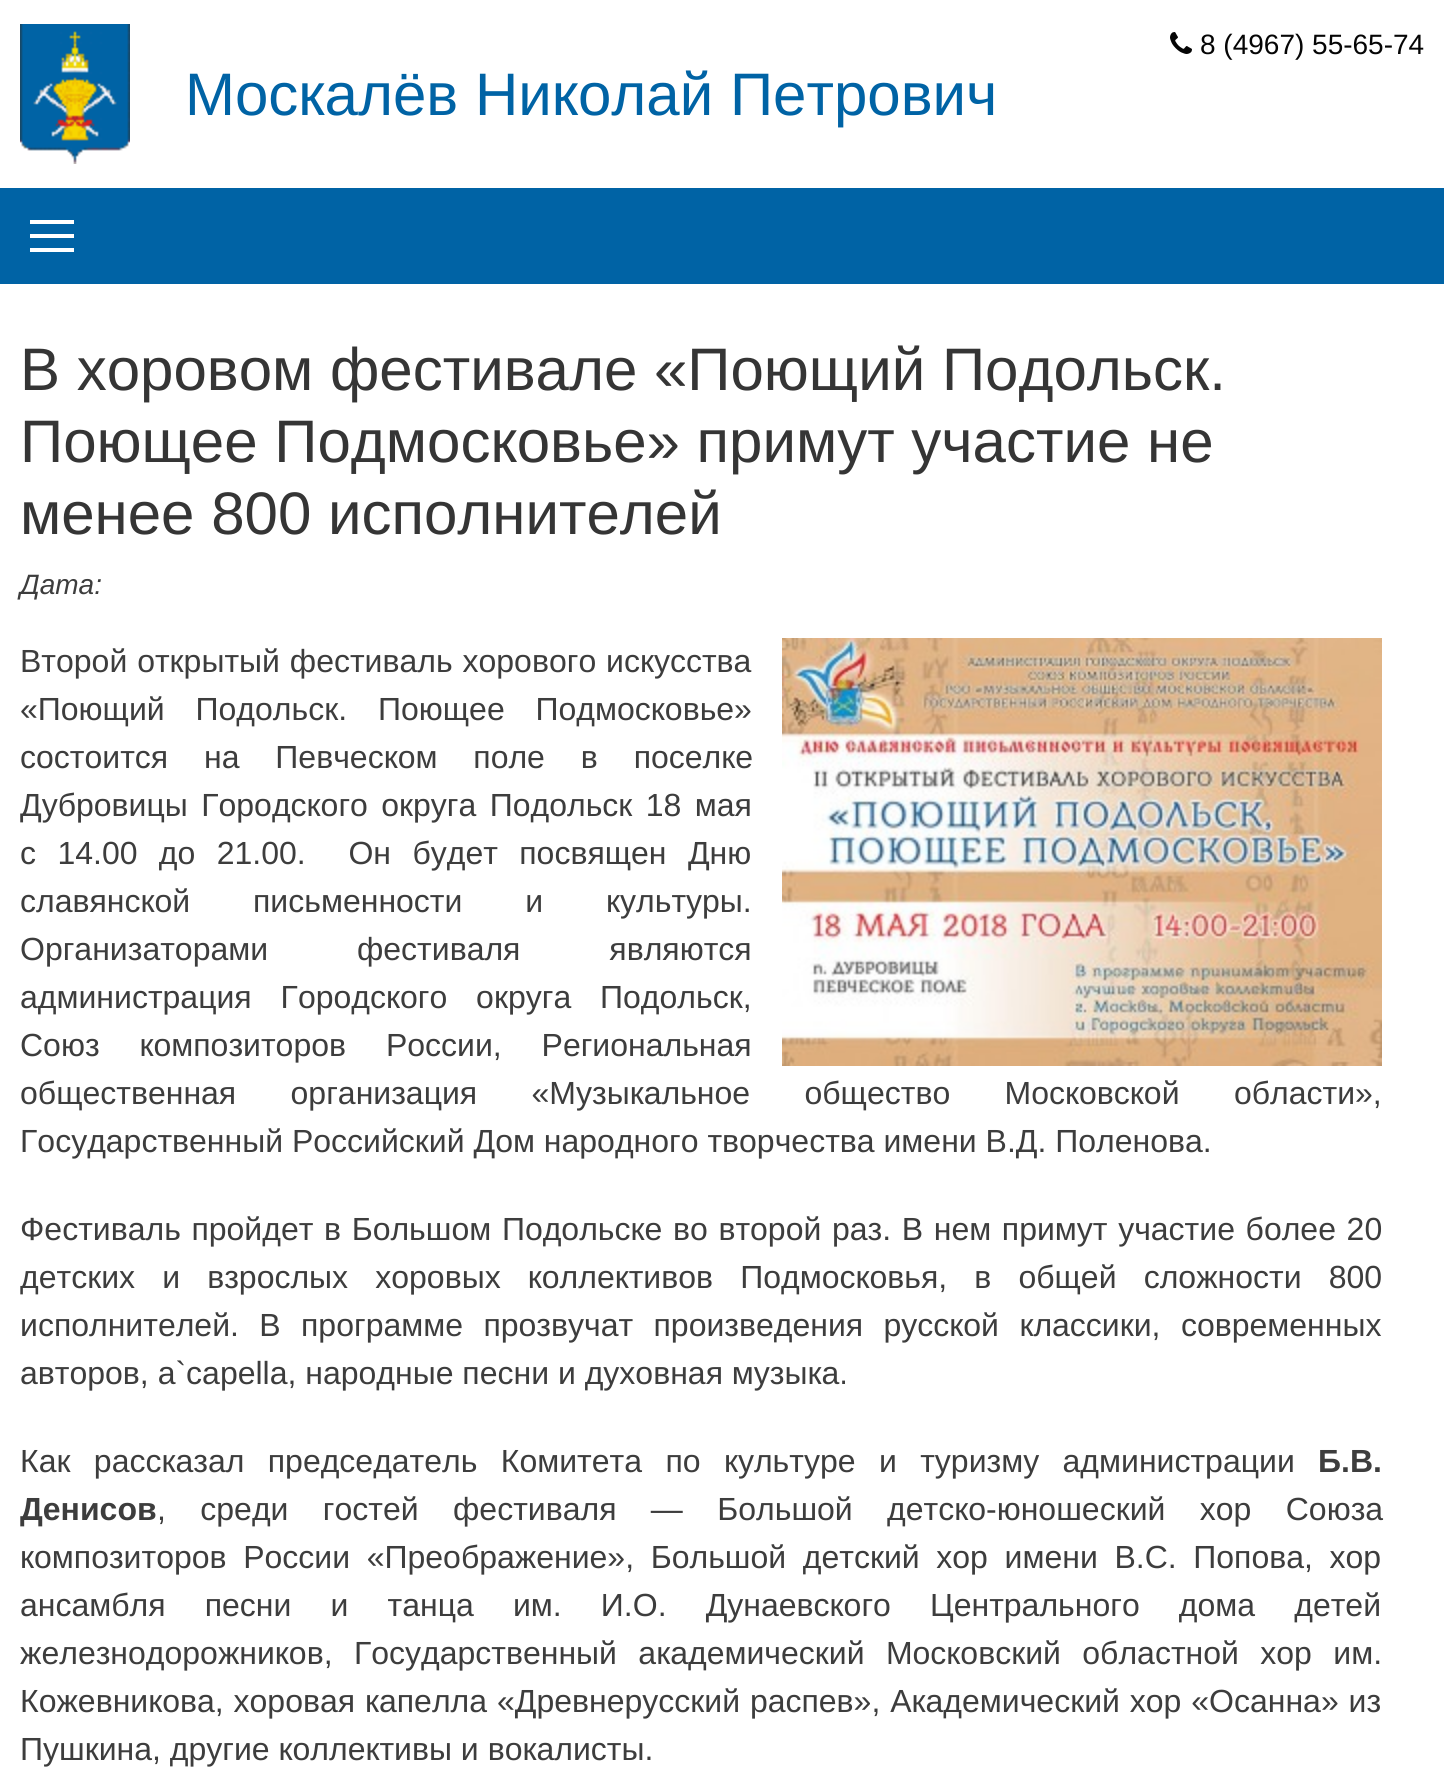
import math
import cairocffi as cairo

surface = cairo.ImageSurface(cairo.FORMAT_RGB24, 1444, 1774)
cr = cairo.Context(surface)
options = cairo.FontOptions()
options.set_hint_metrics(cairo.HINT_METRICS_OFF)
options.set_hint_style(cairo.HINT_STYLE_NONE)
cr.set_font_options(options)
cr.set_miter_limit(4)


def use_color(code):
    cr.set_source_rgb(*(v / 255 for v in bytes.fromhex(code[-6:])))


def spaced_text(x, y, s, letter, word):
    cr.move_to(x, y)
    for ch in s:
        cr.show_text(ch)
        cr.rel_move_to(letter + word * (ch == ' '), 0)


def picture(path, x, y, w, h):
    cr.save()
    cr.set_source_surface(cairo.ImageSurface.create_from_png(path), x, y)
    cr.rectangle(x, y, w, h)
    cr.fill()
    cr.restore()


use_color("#ffffff")
cr.paint()
picture("img1.png", 1170, 32, 22, 22)
cr.select_font_face("Liberation Sans")
cr.set_font_size(28)
use_color("#050505")
cr.move_to(1200, 54)
cr.show_text("8 (4967) 55-65-74")
picture("img2.png", 20, 24, 110, 140)
cr.set_font_size(60)
use_color("#0063a5")
cr.move_to(185, 115)
cr.show_text("Москалёв Николай Петрович")
cr.rectangle(0, 188, 1444, 96)
cr.fill()
use_color("#ffffff")
cr.rectangle(30, 220, 44, 4)
cr.fill()
cr.rectangle(30, 234, 44, 4)
cr.fill()
cr.rectangle(30, 248, 44, 4)
cr.fill()
use_color("#353535")
cr.move_to(20, 390)
cr.show_text("В хоровом фестивале «Поющий Подольск.")
cr.move_to(20, 462)
cr.show_text("Поющее Подмосковье» примут участие не")
cr.move_to(20, 534)
cr.show_text("менее 800 исполнителей")
cr.select_font_face("Liberation Sans", cairo.FONT_SLANT_ITALIC)
cr.set_font_size(28)
use_color("#3d3d3d")
cr.move_to(20, 594)
cr.show_text("Дата:")
cr.select_font_face("Liberation Sans")
cr.set_font_size(32)
spaced_text(20, 672, "Второй открытый фестиваль хорового искусства", 0, 1)
picture("img3.png", 782, 638, 600, 428)
spaced_text(20, 720, "«Поющий Подольск. Поющее Подмосковье»", 0, 22)
spaced_text(20, 768, "состоится на Певческом поле в поселке", 0, 27)
spaced_text(20, 816, "Дубровицы Городского округа Подольск 18 мая", 0, 4.5)
spaced_text(20, 864, "с 14.00 до 21.00.  Он будет посвящен Дню", 0, 12.5)
spaced_text(20, 912, "славянской письменности и культуры.", 0, 54)
spaced_text(20, 960, "Организаторами фестиваля являются", 0, 80)
spaced_text(20, 1008, "администрация Городского округа Подольск,", 0, 20)
spaced_text(20, 1056, "Союз композиторов России, Региональная", 0, 31)
spaced_text(20, 1104, "общественная организация «Музыкальное общество Московской области»,", 0, 45.5)
cr.move_to(20, 1152)
cr.show_text("Государственный Российский Дом народного творчества имени В.Д. Поленова.")
spaced_text(20, 1240, "Фестиваль пройдет в Большом Подольске во второй раз. В нем примут участие более 20", 0, 1.75)
spaced_text(20, 1288, "детских и взрослых хоровых коллективов Подмосковья, в общей сложности 800", 0, 18.25)
spaced_text(20, 1336, "исполнителей. В программе прозвучат произведения русской классики, современных", 0, 11.5)
cr.move_to(20, 1384)
cr.show_text("авторов, a`capella, народные песни и духовная музыка.")
spaced_text(20, 1472, "Как рассказал председатель Комитета по культуре и туризму администрации", 0, 14.5)
cr.select_font_face("Liberation Sans", cairo.FONT_SLANT_NORMAL, cairo.FONT_WEIGHT_BOLD)
cr.move_to(1318, 1472)
cr.show_text("Б.В.")
cr.move_to(20, 1520)
cr.show_text("Денисов")
cr.select_font_face("Liberation Sans")
spaced_text(157, 1520, ", среди гостей фестиваля — Большой детско-юношеский хор Союза", 0, 25.5)
spaced_text(20, 1568, "композиторов России «Преображение», Большой детский хор имени В.С. Попова, хор", 0, 7.75)
spaced_text(20, 1616, "ансамбля песни и танца им. И.О. Дунаевского Центрального дома детей", 0, 30.25)
spaced_text(20, 1664, "железнодорожников, Государственный академический Московский областной хор им.", 0, 12.5)
spaced_text(20, 1712, "Кожевникова, хоровая капелла «Древнерусский распев», Академический хор «Осанна» из", 0, 1)
cr.move_to(20, 1760)
cr.show_text("Пушкина, другие коллективы и вокалисты.")
surface.write_to_png("result.png")
